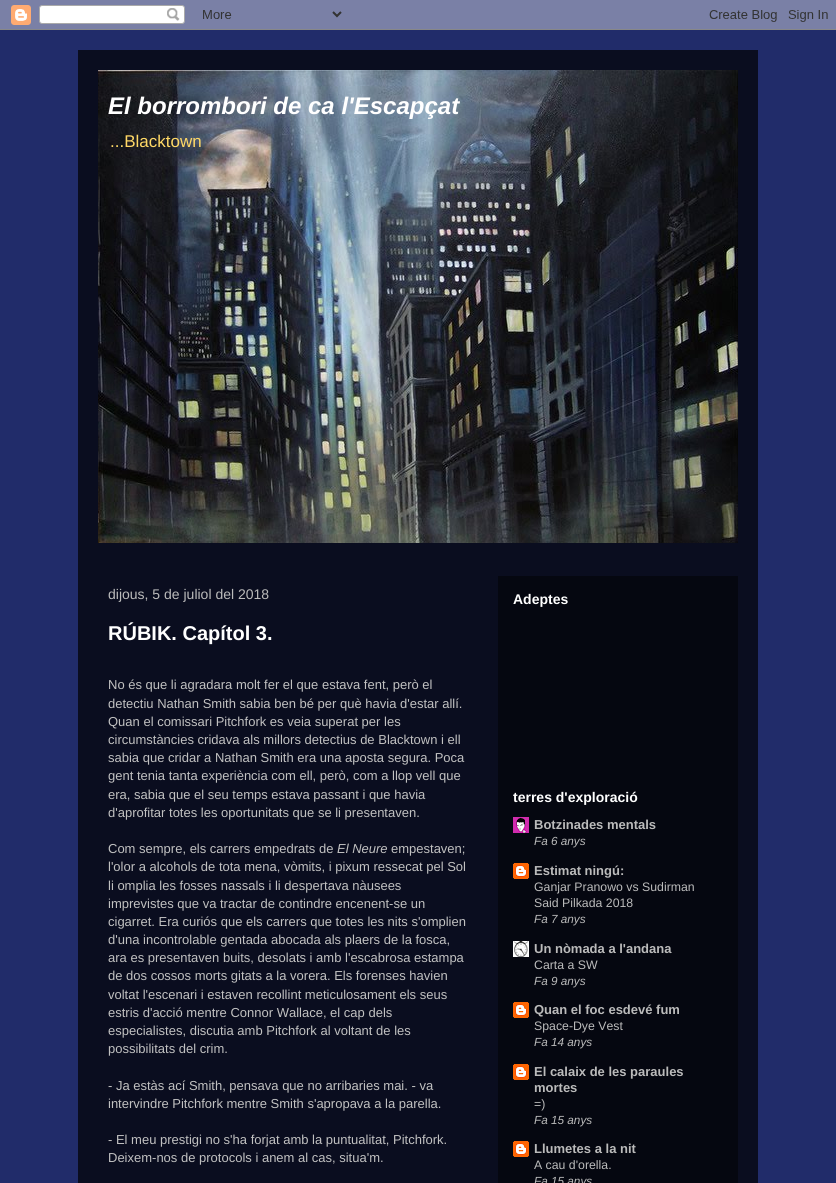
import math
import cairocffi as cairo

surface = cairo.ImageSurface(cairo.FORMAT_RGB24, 836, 1183)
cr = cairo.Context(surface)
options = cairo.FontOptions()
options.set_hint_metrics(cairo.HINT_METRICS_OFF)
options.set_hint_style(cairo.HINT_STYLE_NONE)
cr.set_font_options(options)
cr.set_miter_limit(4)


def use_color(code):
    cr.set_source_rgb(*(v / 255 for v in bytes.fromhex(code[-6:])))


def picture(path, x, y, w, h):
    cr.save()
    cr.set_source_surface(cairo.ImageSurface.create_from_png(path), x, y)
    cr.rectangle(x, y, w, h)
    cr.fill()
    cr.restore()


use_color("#212c6a")
cr.paint()
picture("img1.png", 0, 0, 836, 30)
use_color("#0a0d1f")
cr.rectangle(78, 50, 680, 1133)
cr.fill()
picture("img2.png", 98, 70, 640, 473)
cr.select_font_face("Liberation Sans", cairo.FONT_SLANT_ITALIC, cairo.FONT_WEIGHT_BOLD)
cr.set_font_size(24)
use_color("#ffffff")
cr.move_to(108, 114)
cr.show_text("El borrombori de ca l'Escapçat")
cr.select_font_face("Liberation Sans")
cr.set_font_size(17)
use_color("#ffd966")
cr.move_to(110, 147)
cr.show_text("...Blacktown")
use_color("#050710")
cr.rectangle(498, 576, 240, 607)
cr.fill()
cr.set_font_size(14)
use_color("#bbbbbb")
cr.move_to(108, 599)
cr.show_text("dijous, 5 de juliol del 2018")
cr.select_font_face("Liberation Sans", cairo.FONT_SLANT_NORMAL, cairo.FONT_WEIGHT_BOLD)
cr.set_font_size(20)
use_color("#ffffff")
cr.move_to(108, 640)
cr.show_text("RÚBIK. Capítol 3.")
cr.select_font_face("Liberation Sans")
cr.set_font_size(13)
use_color("#c1c1c1")
cr.move_to(108, 689)
cr.show_text("No és que li agradara molt fer el que estava fent, però el")
cr.move_to(108, 708)
cr.show_text("detectiu Nathan Smith sabia ben bé per què havia d'estar allí.")
cr.move_to(108, 726)
cr.show_text("Quan el comissari Pitchfork es veia superat per les")
cr.move_to(108, 744)
cr.show_text("circumstàncies cridava als millors detectius de Blacktown i ell")
cr.move_to(108, 762)
cr.show_text("sabia que cridar a Nathan Smith era una aposta segura. Poca")
cr.move_to(108, 780)
cr.show_text("gent tenia tanta experiència com ell, però, com a llop vell que")
cr.move_to(108, 799)
cr.show_text("era, sabia que el seu temps estava passant i que havia")
cr.move_to(108, 817)
cr.show_text("d'aprofitar totes les oportunitats que se li presentaven.")
cr.move_to(108, 853)
cr.show_text("Com sempre, els carrers empedrats de")
cr.select_font_face("Liberation Sans", cairo.FONT_SLANT_ITALIC)
cr.move_to(337, 853)
cr.show_text("El Neure")
cr.select_font_face("Liberation Sans")
cr.move_to(391, 853)
cr.show_text("empestaven;")
cr.move_to(108, 871)
cr.show_text("l'olor a alcohols de tota mena, vòmits, i pixum ressecat pel Sol")
cr.move_to(108, 890)
cr.show_text("li omplia les fosses nassals i li despertava nàusees")
cr.move_to(108, 908)
cr.show_text("imprevistes que va tractar de contindre encenent-se un")
cr.move_to(108, 926)
cr.show_text("cigarret. Era curiós que els carrers que totes les nits s'omplien")
cr.move_to(108, 944)
cr.show_text("d'una incontrolable gentada abocada als plaers de la fosca,")
cr.move_to(108, 962)
cr.show_text("ara es presentaven buits, desolats i amb l'escabrosa estampa")
cr.move_to(108, 980)
cr.show_text("de dos cossos morts gitats a la vorera. Els forenses havien")
cr.move_to(108, 999)
cr.show_text("voltat l'escenari i estaven recollint meticulosament els seus")
cr.move_to(108, 1017)
cr.show_text("estris d'acció mentre Connor Wallace, el cap dels")
cr.move_to(108, 1035)
cr.show_text("especialistes, discutia amb Pitchfork al voltant de les")
cr.move_to(108, 1053)
cr.show_text("possibilitats del crim.")
cr.move_to(108, 1090)
cr.show_text("- Ja estàs ací Smith, pensava que no arribaries mai. - va")
cr.move_to(108, 1108)
cr.show_text("intervindre Pitchfork mentre Smith s'apropava a la parella.")
cr.move_to(108, 1144)
cr.show_text("- El meu prestigi no s'ha forjat amb la puntualitat, Pitchfork.")
cr.move_to(108, 1162)
cr.show_text("Deixem-nos de protocols i anem al cas, situa'm.")
cr.select_font_face("Liberation Sans", cairo.FONT_SLANT_NORMAL, cairo.FONT_WEIGHT_BOLD)
cr.set_font_size(14)
use_color("#ffffff")
cr.move_to(513, 604)
cr.show_text("Adeptes")
cr.move_to(513, 802)
cr.show_text("terres d'exploració")
picture("img3.png", 513, 817, 16, 16)
cr.set_font_size(13)
use_color("#bbbbbb")
cr.move_to(534, 829)
cr.show_text("Botzinades mentals")
cr.select_font_face("Liberation Sans", cairo.FONT_SLANT_ITALIC)
cr.set_font_size(11.75)
cr.move_to(534, 845)
cr.show_text("Fa 6 anys")
picture("img4.png", 513, 863, 16, 16)
cr.select_font_face("Liberation Sans", cairo.FONT_SLANT_NORMAL, cairo.FONT_WEIGHT_BOLD)
cr.set_font_size(13)
cr.move_to(534, 875)
cr.show_text("Estimat ningú:")
cr.select_font_face("Liberation Sans")
cr.set_font_size(12.3)
cr.move_to(534, 891)
cr.show_text("Ganjar Pranowo vs Sudirman")
cr.move_to(534, 907)
cr.show_text("Said Pilkada 2018")
cr.select_font_face("Liberation Sans", cairo.FONT_SLANT_ITALIC)
cr.set_font_size(11.75)
cr.move_to(534, 923)
cr.show_text("Fa 7 anys")
picture("img5.png", 513, 941, 16, 16)
cr.select_font_face("Liberation Sans", cairo.FONT_SLANT_NORMAL, cairo.FONT_WEIGHT_BOLD)
cr.set_font_size(13)
cr.move_to(534, 953)
cr.show_text("Un nòmada a l'andana")
cr.select_font_face("Liberation Sans")
cr.set_font_size(12.3)
cr.move_to(534, 969)
cr.show_text("Carta a SW")
cr.select_font_face("Liberation Sans", cairo.FONT_SLANT_ITALIC)
cr.set_font_size(11.75)
cr.move_to(534, 985)
cr.show_text("Fa 9 anys")
picture("img4.png", 513, 1002, 16, 16)
cr.select_font_face("Liberation Sans", cairo.FONT_SLANT_NORMAL, cairo.FONT_WEIGHT_BOLD)
cr.set_font_size(13)
cr.move_to(534, 1014)
cr.show_text("Quan el foc esdevé fum")
cr.select_font_face("Liberation Sans")
cr.set_font_size(12.3)
cr.move_to(534, 1030)
cr.show_text("Space-Dye Vest")
cr.select_font_face("Liberation Sans", cairo.FONT_SLANT_ITALIC)
cr.set_font_size(11.75)
cr.move_to(534, 1046)
cr.show_text("Fa 14 anys")
picture("img4.png", 513, 1064, 16, 16)
cr.select_font_face("Liberation Sans", cairo.FONT_SLANT_NORMAL, cairo.FONT_WEIGHT_BOLD)
cr.set_font_size(13)
cr.move_to(534, 1076)
cr.show_text("El calaix de les paraules")
cr.move_to(534, 1092)
cr.show_text("mortes")
cr.select_font_face("Liberation Sans")
cr.set_font_size(12.3)
cr.move_to(534, 1108)
cr.show_text("=)")
cr.select_font_face("Liberation Sans", cairo.FONT_SLANT_ITALIC)
cr.set_font_size(11.75)
cr.move_to(534, 1124)
cr.show_text("Fa 15 anys")
picture("img4.png", 513, 1141, 16, 16)
cr.select_font_face("Liberation Sans", cairo.FONT_SLANT_NORMAL, cairo.FONT_WEIGHT_BOLD)
cr.set_font_size(13)
cr.move_to(534, 1153)
cr.show_text("Llumetes a la nit")
cr.select_font_face("Liberation Sans")
cr.set_font_size(12.3)
cr.move_to(534, 1169)
cr.show_text("A cau d'orella.")
cr.select_font_face("Liberation Sans", cairo.FONT_SLANT_ITALIC)
cr.set_font_size(11.75)
cr.move_to(534, 1185)
cr.show_text("Fa 15 anys")
surface.write_to_png("result.png")
